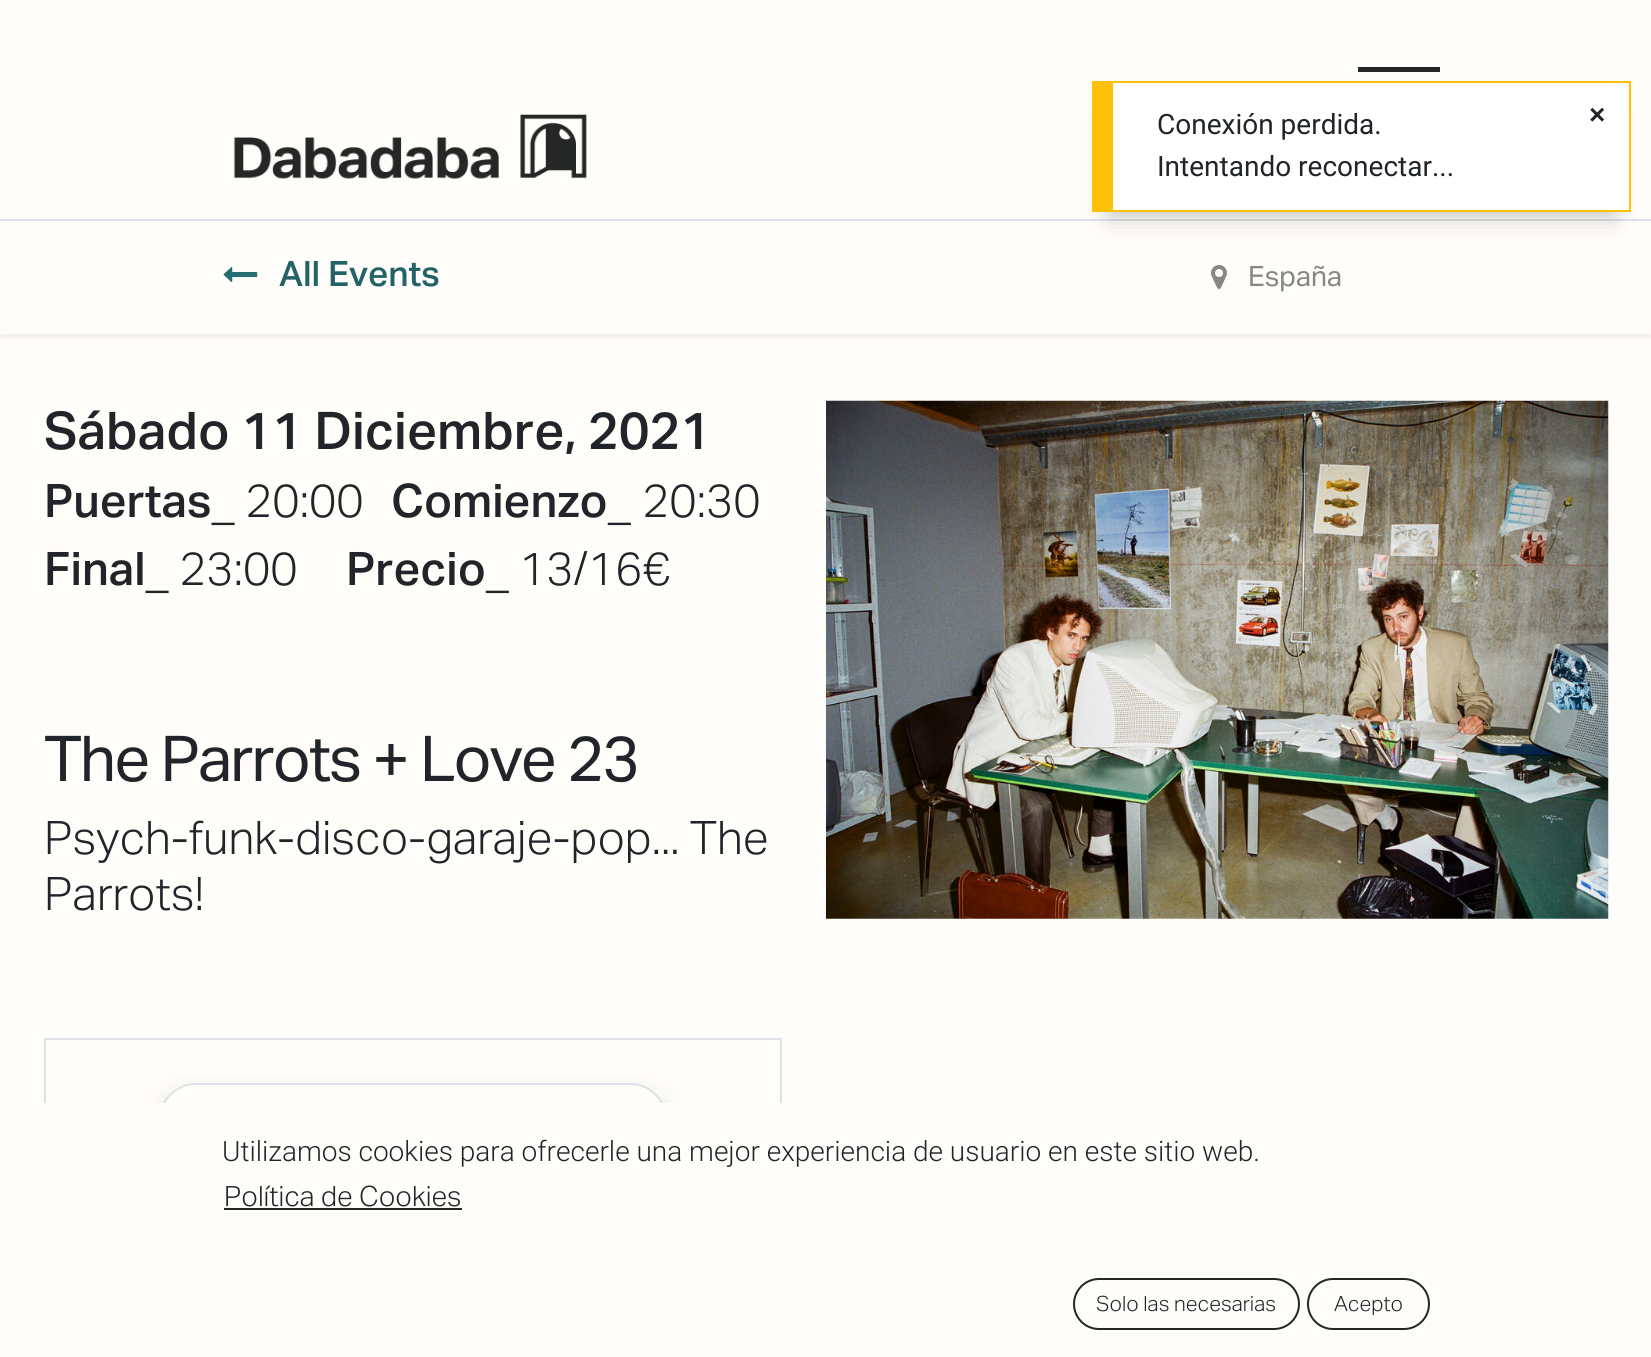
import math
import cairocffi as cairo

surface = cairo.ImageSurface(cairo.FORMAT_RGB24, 1651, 1357)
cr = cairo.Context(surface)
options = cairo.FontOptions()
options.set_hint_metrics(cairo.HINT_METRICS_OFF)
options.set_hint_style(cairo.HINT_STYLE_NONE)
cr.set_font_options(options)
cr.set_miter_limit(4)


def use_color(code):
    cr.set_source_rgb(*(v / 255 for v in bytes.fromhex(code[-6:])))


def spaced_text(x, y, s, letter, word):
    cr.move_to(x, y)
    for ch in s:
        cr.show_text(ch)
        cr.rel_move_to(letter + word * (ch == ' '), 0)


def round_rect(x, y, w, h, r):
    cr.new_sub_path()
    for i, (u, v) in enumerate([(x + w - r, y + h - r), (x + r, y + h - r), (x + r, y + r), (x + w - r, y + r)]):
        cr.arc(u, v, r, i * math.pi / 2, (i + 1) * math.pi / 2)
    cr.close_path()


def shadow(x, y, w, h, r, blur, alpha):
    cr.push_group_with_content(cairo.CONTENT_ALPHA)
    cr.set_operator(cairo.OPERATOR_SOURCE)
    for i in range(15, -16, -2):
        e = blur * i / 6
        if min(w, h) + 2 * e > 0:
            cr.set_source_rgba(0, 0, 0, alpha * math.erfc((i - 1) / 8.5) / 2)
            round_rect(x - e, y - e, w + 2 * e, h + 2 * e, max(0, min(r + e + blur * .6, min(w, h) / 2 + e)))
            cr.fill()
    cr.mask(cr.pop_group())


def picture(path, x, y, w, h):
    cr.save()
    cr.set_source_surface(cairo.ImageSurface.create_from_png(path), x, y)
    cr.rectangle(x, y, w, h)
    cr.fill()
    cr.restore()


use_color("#fffdf9")
cr.paint()
cr.save()
cr.rectangle(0, 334, 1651, 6)
cr.clip()
use_color("#262626")
shadow(0, 222, 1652, 116, 0, 3.5, 0.07)
cr.restore()
use_color("#dee2e6")
cr.rectangle(0, 219, 1651, 2)
cr.fill()
use_color("#000000")
shadow(1110, 119, 504, 96, 0, 12, 0.25)
use_color("#ffffff")
cr.rectangle(1113, 83, 516, 127)
cr.fill()
use_color("#ffc107")
cr.rectangle(1113, 81, 518, 2)
cr.fill()
cr.rectangle(1629, 81, 2, 131)
cr.fill()
cr.rectangle(1113, 210, 518, 2)
cr.fill()
cr.rectangle(1092, 81, 21, 131)
cr.fill()
cr.select_font_face("Roboto")
cr.set_font_size(28)
use_color("#212529")
cr.move_to(1157, 134)
cr.show_text("Conexión perdida.")
cr.move_to(1157, 176)
cr.show_text("Intentando reconectar...")
cr.select_font_face("Liberation Sans", cairo.FONT_SLANT_NORMAL, cairo.FONT_WEIGHT_BOLD)
cr.move_to(1589, 124)
cr.show_text("×")
use_color("#262626")
cr.rectangle(1358, 67, 82, 5)
cr.fill()
picture("img1.png", 233, 114, 354, 65)
picture("img2.png", 223, 267, 35, 15)
cr.select_font_face("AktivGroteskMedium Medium")
cr.set_font_size(35)
use_color("#236367")
cr.move_to(279, 286)
cr.show_text("All Events")
picture("img3.png", 1211, 265, 16, 24)
cr.select_font_face("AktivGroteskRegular")
cr.set_font_size(28)
use_color("#888785")
cr.move_to(1248, 286)
cr.show_text("España")
cr.select_font_face("AktivGroteskMedium Medium")
cr.set_font_size(52)
use_color("#212529")
cr.move_to(44, 449)
cr.show_text("Sábado 11 Diciembre, 2021")
cr.set_font_size(46.25)
cr.move_to(44, 517)
cr.show_text("Puertas_")
cr.select_font_face("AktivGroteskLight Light")
cr.move_to(245, 517)
cr.show_text("20:00")
cr.select_font_face("AktivGroteskMedium Medium")
cr.move_to(391, 517)
cr.show_text("Comienzo_")
cr.select_font_face("AktivGroteskLight Light")
cr.move_to(642, 517)
cr.show_text("20:30")
cr.select_font_face("AktivGroteskMedium Medium")
cr.move_to(44, 585)
cr.show_text("Final_")
cr.select_font_face("AktivGroteskLight Light")
cr.move_to(179, 585)
cr.show_text("23:00")
cr.select_font_face("AktivGroteskMedium Medium")
cr.move_to(346, 585)
cr.show_text("Precio_")
cr.select_font_face("AktivGroteskLight Light")
cr.move_to(519, 585)
cr.show_text("13/16€")
cr.select_font_face("AktivGroteskRegular")
cr.set_font_size(63.25)
spaced_text(44, 781, "The Parrots + Love 23", -1.9, 0)
cr.select_font_face("AktivGroteskLight Light")
cr.set_font_size(46.25)
cr.move_to(44, 854)
cr.show_text("Psych-funk-disco-garaje-pop... The")
cr.move_to(44, 910)
cr.show_text("Parrots!")
cr.rectangle(45, 1039, 736, 238)
use_color("#dee2e6")
cr.stroke()
use_color("#262626")
shadow(159, 1097, 508, 74, 37, 14, 0.15)
use_color("#fffdf9")
round_rect(160, 1084, 506, 72, 36)
cr.fill_preserve()
use_color("#dee2e6")
cr.stroke()
picture("img4.png", 826, 400, 783, 519)
use_color("#fffdf9")
cr.rectangle(44, 1103, 738, 175)
cr.fill()
cr.select_font_face("Roboto Light")
cr.set_font_size(28)
use_color("#212529")
cr.move_to(222, 1161)
cr.show_text("Utilizamos cookies para ofrecerle una mejor experiencia de usuario en este sitio web.")
cr.select_font_face("AktivGroteskLight Light")
cr.move_to(224, 1206)
cr.show_text("Política de Cookies")
use_color("#262626")
cr.rectangle(224, 1208, 238, 2)
cr.fill()
round_rect(1074, 1279, 225, 50, 25)
cr.stroke()
cr.set_font_size(21)
use_color("#212529")
cr.move_to(1096, 1311)
cr.show_text("Solo las necesarias")
round_rect(1308, 1279, 121, 50, 25)
use_color("#262626")
cr.stroke()
use_color("#212529")
cr.move_to(1334, 1311)
cr.show_text("Acepto")
surface.write_to_png("result.png")
